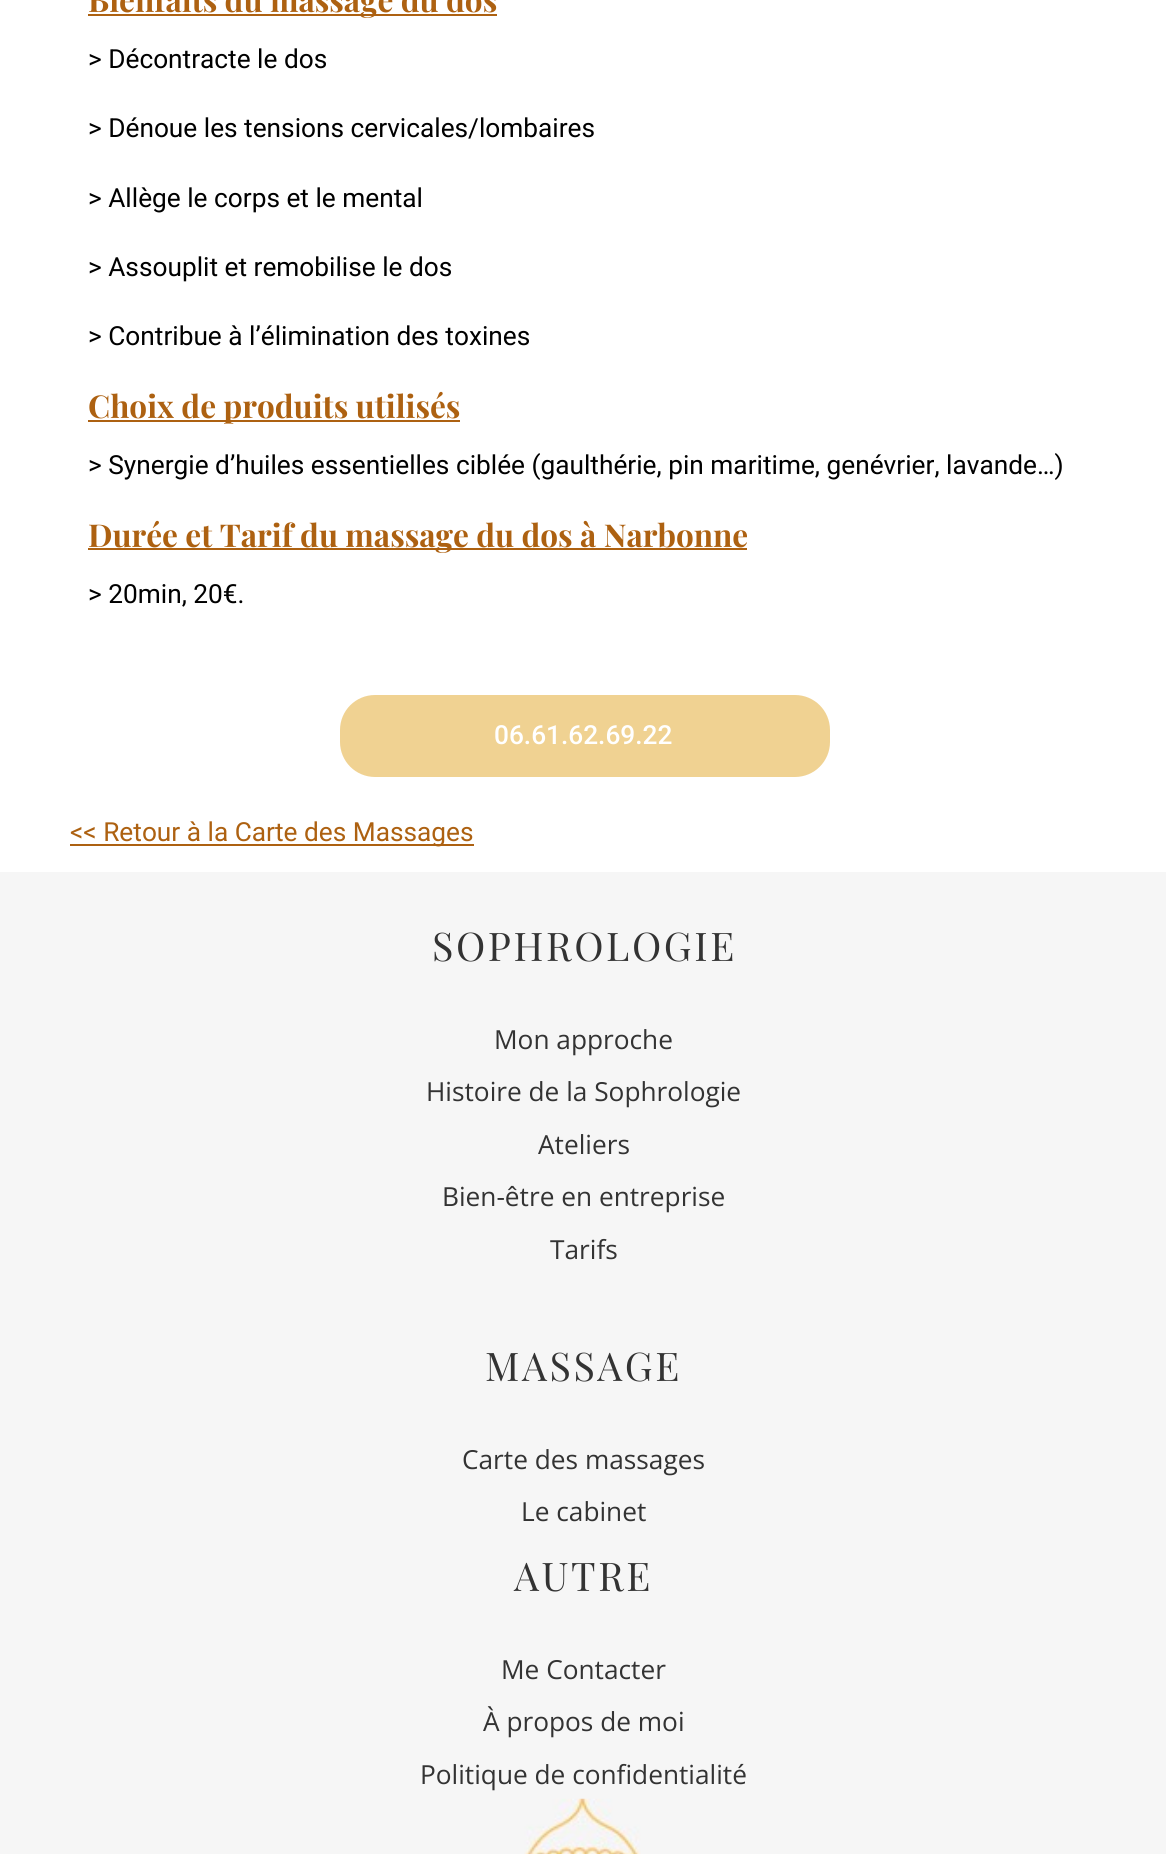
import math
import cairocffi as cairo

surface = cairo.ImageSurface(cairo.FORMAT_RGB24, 1166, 1854)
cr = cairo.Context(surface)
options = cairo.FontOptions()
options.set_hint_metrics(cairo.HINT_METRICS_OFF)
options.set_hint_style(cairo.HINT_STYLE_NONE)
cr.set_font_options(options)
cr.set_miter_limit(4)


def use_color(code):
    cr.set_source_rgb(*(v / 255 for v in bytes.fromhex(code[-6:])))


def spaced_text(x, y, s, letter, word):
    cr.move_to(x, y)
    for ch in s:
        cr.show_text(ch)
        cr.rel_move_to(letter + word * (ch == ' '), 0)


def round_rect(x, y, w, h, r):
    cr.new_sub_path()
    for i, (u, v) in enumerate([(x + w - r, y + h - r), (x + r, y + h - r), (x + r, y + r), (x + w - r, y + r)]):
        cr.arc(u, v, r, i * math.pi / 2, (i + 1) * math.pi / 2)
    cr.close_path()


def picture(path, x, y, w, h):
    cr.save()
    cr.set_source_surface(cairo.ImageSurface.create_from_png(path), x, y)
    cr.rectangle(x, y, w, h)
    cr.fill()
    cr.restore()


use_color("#f6f6f6")
cr.paint()
use_color("#ffffff")
cr.rectangle(0, 0, 1166, 872)
cr.fill()
use_color("#ad6111")
cr.rectangle(88, 14, 409, 2)
cr.fill()
cr.select_font_face("Playfair Display", cairo.FONT_SLANT_NORMAL, cairo.FONT_WEIGHT_BOLD)
cr.set_font_size(31.5)
cr.move_to(88, 12)
cr.show_text("Bienfaits du massage du dos")
cr.select_font_face("Roboto")
cr.set_font_size(26.25)
use_color("#000000")
cr.move_to(88, 68)
cr.show_text("> Décontracte le dos")
cr.move_to(88, 137)
cr.show_text("> Dénoue les tensions cervicales/lombaires")
cr.move_to(88, 207)
cr.show_text("> Allège le corps et le mental")
cr.move_to(88, 276)
cr.show_text("> Assouplit et remobilise le dos")
cr.move_to(88, 345)
cr.show_text("> Contribue à l’élimination des toxines")
use_color("#ad6111")
cr.rectangle(88, 420, 372, 2)
cr.fill()
cr.select_font_face("Playfair Display", cairo.FONT_SLANT_NORMAL, cairo.FONT_WEIGHT_BOLD)
cr.set_font_size(31.5)
cr.move_to(88, 418)
cr.show_text("Choix de produits utilisés")
cr.select_font_face("Roboto")
cr.set_font_size(26.25)
use_color("#000000")
cr.move_to(88, 474)
cr.show_text("> Synergie d’huiles essentielles ciblée (gaulthérie, pin maritime, genévrier, lavande…)")
use_color("#ad6111")
cr.rectangle(88, 548, 659, 2)
cr.fill()
cr.select_font_face("Playfair Display", cairo.FONT_SLANT_NORMAL, cairo.FONT_WEIGHT_BOLD)
cr.set_font_size(31.5)
cr.move_to(88, 547)
cr.show_text("Durée et Tarif du massage du dos à Narbonne")
cr.select_font_face("Roboto")
cr.set_font_size(26.25)
use_color("#000000")
cr.move_to(88, 603)
cr.show_text("> 20min, 20€.")
use_color("#f0d292")
round_rect(349.5, 704.5, 471, 63, 25.5)
cr.fill_preserve()
cr.set_line_width(19)
cr.stroke()
cr.select_font_face("Roboto Medium")
use_color("#ffffff")
cr.move_to(494, 744)
cr.show_text("06.61.62.69.22")
use_color("#ad6111")
cr.rectangle(70, 844, 404, 2)
cr.fill()
cr.select_font_face("Roboto")
cr.move_to(70, 841)
cr.show_text("<< Retour à la Carte des Massages")
cr.select_font_face("Playfair Display")
cr.set_font_size(39.5)
use_color("#333333")
spaced_text(432, 961, "SOPHROLOGIE", 2.6, 0)
cr.select_font_face("Open Sans")
cr.set_font_size(26.25)
cr.move_to(494, 1049)
cr.show_text("Mon approche")
cr.move_to(426, 1101)
cr.show_text("Histoire de la Sophrologie")
cr.move_to(538, 1154)
cr.show_text("Ateliers")
cr.move_to(442, 1206)
cr.show_text("Bien-être en entreprise")
cr.move_to(550, 1259)
cr.show_text("Tarifs")
cr.select_font_face("Playfair Display")
cr.set_font_size(39.5)
spaced_text(485, 1381, "MASSAGE", 2.6, 0)
cr.select_font_face("Open Sans")
cr.set_font_size(26.25)
cr.move_to(462, 1469)
cr.show_text("Carte des massages")
cr.move_to(521, 1521)
cr.show_text("Le cabinet")
cr.select_font_face("Playfair Display")
cr.set_font_size(39.5)
spaced_text(514, 1591, "AUTRE", 2.6, 0)
cr.select_font_face("Open Sans")
cr.set_font_size(26.25)
cr.move_to(501, 1679)
cr.show_text("Me Contacter")
cr.move_to(483, 1731)
cr.show_text("À propos de moi")
cr.move_to(420, 1784)
cr.show_text("Politique de confidentialité")
picture("img1.png", 524, 1798, 117, 56)
surface.write_to_png("result.png")
